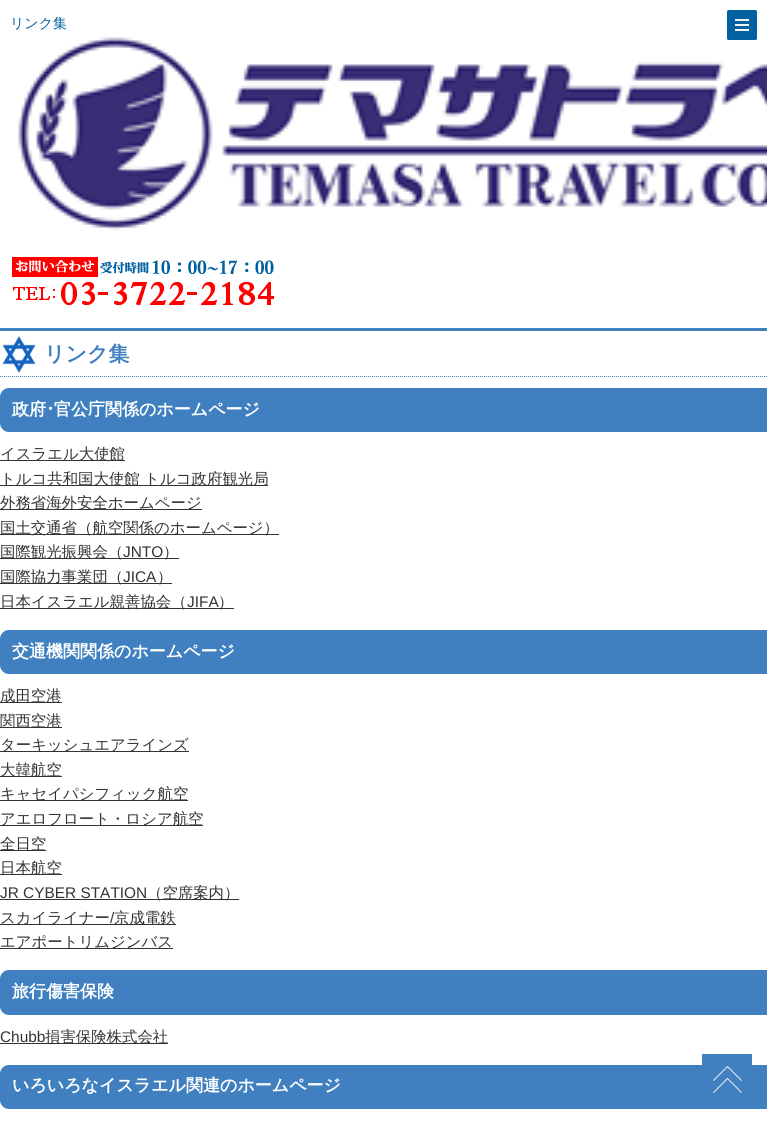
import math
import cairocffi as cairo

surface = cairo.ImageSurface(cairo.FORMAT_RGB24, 767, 1123)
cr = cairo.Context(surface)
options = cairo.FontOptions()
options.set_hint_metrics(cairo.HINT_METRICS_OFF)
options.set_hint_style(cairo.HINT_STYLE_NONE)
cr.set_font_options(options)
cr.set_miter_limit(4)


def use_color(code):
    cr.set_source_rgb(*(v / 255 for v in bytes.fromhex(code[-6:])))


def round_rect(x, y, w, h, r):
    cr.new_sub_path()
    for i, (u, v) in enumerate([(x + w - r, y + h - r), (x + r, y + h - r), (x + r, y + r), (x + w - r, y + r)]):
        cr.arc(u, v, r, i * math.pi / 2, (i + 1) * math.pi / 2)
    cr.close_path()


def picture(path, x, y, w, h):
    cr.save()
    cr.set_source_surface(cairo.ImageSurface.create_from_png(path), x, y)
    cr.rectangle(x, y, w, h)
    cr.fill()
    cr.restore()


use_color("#ffffff")
cr.paint()
cr.select_font_face("WenQuanYi Zen Hei Medium")
cr.set_font_size(14)
use_color("#0060a0")
cr.move_to(10, 28)
cr.show_text("リンク集")
picture("img1.png", 18, 37, 749, 194)
picture("img2.png", 12, 257, 262, 48)
round_rect(727, 10, 30, 30, 1.5)
cr.fill()
use_color("#f1f1f1")
cr.rectangle(735, 24, 14, 2)
cr.fill()
cr.rectangle(735, 19, 14, 2)
cr.fill()
cr.rectangle(735, 29, 14, 2)
cr.fill()
picture("img3.png", 2, 336, 34, 37)
use_color("#4080c0")
cr.rectangle(0, 328, 767, 3)
cr.fill()
cr.new_path()
cr.move_to(0, 376.5)
cr.line_to(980, 376.5)
cr.set_line_width(1)
cr.set_dash([1, 1])
cr.stroke()
cr.select_font_face("WenQuanYi Zen Hei", cairo.FONT_SLANT_NORMAL, cairo.FONT_WEIGHT_BOLD)
cr.set_font_size(21)
cr.move_to(44, 361)
cr.show_text("リンク集")
round_rect(0, 388, 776, 44, 9)
cr.fill()
cr.set_font_size(17)
use_color("#ffffff")
cr.move_to(12, 415)
cr.show_text("政府")
cr.select_font_face("IPAPGothic", cairo.FONT_SLANT_NORMAL, cairo.FONT_WEIGHT_BOLD)
cr.move_to(46, 415)
cr.show_text("･")
cr.select_font_face("WenQuanYi Zen Hei", cairo.FONT_SLANT_NORMAL, cairo.FONT_WEIGHT_BOLD)
cr.move_to(54, 415)
cr.show_text("官公庁関係のホームページ")
use_color("#333333")
cr.rectangle(0, 460, 125, 1)
cr.fill()
cr.select_font_face("WenQuanYi Zen Hei Medium")
cr.set_font_size(15.4)
cr.move_to(0, 459)
cr.show_text("イスラエル大使館")
cr.rectangle(0, 485, 268, 1)
cr.fill()
cr.move_to(0, 484)
cr.show_text("トルコ共和国大使館 トルコ政府観光局")
cr.rectangle(0, 509, 202, 1)
cr.fill()
cr.move_to(0, 508)
cr.show_text("外務省海外安全ホームページ")
cr.rectangle(0, 534, 279, 1)
cr.fill()
cr.move_to(0, 533)
cr.show_text("国土交通省（航空関係のホームページ）")
cr.rectangle(0, 558, 179, 1)
cr.fill()
cr.move_to(0, 557)
cr.show_text("国際観光振興会（")
cr.select_font_face("Liberation Sans")
cr.move_to(123, 557)
cr.show_text("JNTO")
cr.select_font_face("WenQuanYi Zen Hei Medium")
cr.move_to(163, 557)
cr.show_text("）")
cr.rectangle(0, 583, 172, 1)
cr.fill()
cr.move_to(0, 582)
cr.show_text("国際協力事業団（")
cr.select_font_face("Liberation Sans")
cr.move_to(123, 582)
cr.show_text("JICA")
cr.select_font_face("WenQuanYi Zen Hei Medium")
cr.move_to(157, 582)
cr.show_text("）")
cr.rectangle(0, 608, 234, 1)
cr.fill()
cr.move_to(0, 607)
cr.show_text("日本イスラエル親善協会（")
cr.select_font_face("Liberation Sans")
cr.move_to(187, 607)
cr.show_text("JIFA")
cr.select_font_face("WenQuanYi Zen Hei Medium")
cr.move_to(218, 607)
cr.show_text("）")
use_color("#4080c0")
round_rect(0, 630, 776, 44, 9)
cr.fill()
cr.select_font_face("WenQuanYi Zen Hei", cairo.FONT_SLANT_NORMAL, cairo.FONT_WEIGHT_BOLD)
cr.set_font_size(17)
use_color("#ffffff")
cr.move_to(12, 657)
cr.show_text("交通機関関係のホームページ")
use_color("#333333")
cr.rectangle(0, 702, 62, 1)
cr.fill()
cr.select_font_face("WenQuanYi Zen Hei Medium")
cr.set_font_size(15.4)
cr.move_to(0, 701)
cr.show_text("成田空港")
cr.rectangle(0, 727, 62, 1)
cr.fill()
cr.move_to(0, 726)
cr.show_text("関西空港")
cr.rectangle(0, 751, 189, 1)
cr.fill()
cr.move_to(0, 750)
cr.show_text("ターキッシュエアラインズ")
cr.rectangle(0, 776, 62, 1)
cr.fill()
cr.move_to(0, 775)
cr.show_text("大韓航空")
cr.rectangle(0, 800, 188, 1)
cr.fill()
cr.move_to(0, 799)
cr.show_text("キャセイパシフィック航空")
cr.rectangle(0, 825, 203, 1)
cr.fill()
cr.move_to(0, 824)
cr.show_text("アエロフロート・ロシア航空")
cr.rectangle(0, 850, 46, 1)
cr.fill()
cr.move_to(0, 849)
cr.show_text("全日空")
cr.rectangle(0, 874, 62, 1)
cr.fill()
cr.move_to(0, 873)
cr.show_text("日本航空")
cr.select_font_face("Liberation Sans")
cr.move_to(0, 898)
cr.show_text("JR CYBER STATION")
cr.rectangle(0, 899, 239, 1)
cr.fill()
cr.select_font_face("WenQuanYi Zen Hei Medium")
cr.move_to(147, 898)
cr.show_text("（空席案内）")
cr.rectangle(0, 924, 176, 1)
cr.fill()
cr.move_to(0, 923)
cr.show_text("スカイライナー")
cr.select_font_face("Liberation Sans")
cr.move_to(110, 923)
cr.show_text("/")
cr.select_font_face("WenQuanYi Zen Hei Medium")
cr.move_to(114, 923)
cr.show_text("京成電鉄")
cr.rectangle(0, 948, 173, 1)
cr.fill()
cr.move_to(0, 947)
cr.show_text("エアポートリムジンバス")
use_color("#4080c0")
round_rect(0, 970, 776, 45, 9)
cr.fill()
cr.select_font_face("WenQuanYi Zen Hei", cairo.FONT_SLANT_NORMAL, cairo.FONT_WEIGHT_BOLD)
cr.set_font_size(17)
use_color("#ffffff")
cr.move_to(12, 997)
cr.show_text("旅行傷害保険")
cr.select_font_face("Liberation Sans")
cr.set_font_size(15.4)
use_color("#333333")
cr.move_to(0, 1042)
cr.show_text("Chubb")
cr.rectangle(0, 1043, 168, 1)
cr.fill()
cr.select_font_face("WenQuanYi Zen Hei Medium")
cr.move_to(45, 1042)
cr.show_text("損害保険株式会社")
use_color("#4080c0")
round_rect(0, 1065, 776, 44, 9)
cr.fill()
cr.select_font_face("WenQuanYi Zen Hei", cairo.FONT_SLANT_NORMAL, cairo.FONT_WEIGHT_BOLD)
cr.set_font_size(17)
use_color("#ffffff")
cr.move_to(12, 1091)
cr.show_text("いろいろなイスラエル関連のホームページ")
use_color("#4080c0")
cr.rectangle(702, 1054, 50, 11)
cr.fill()
picture("img4.png", 713, 1066, 29, 27)
surface.write_to_png("result.png")
